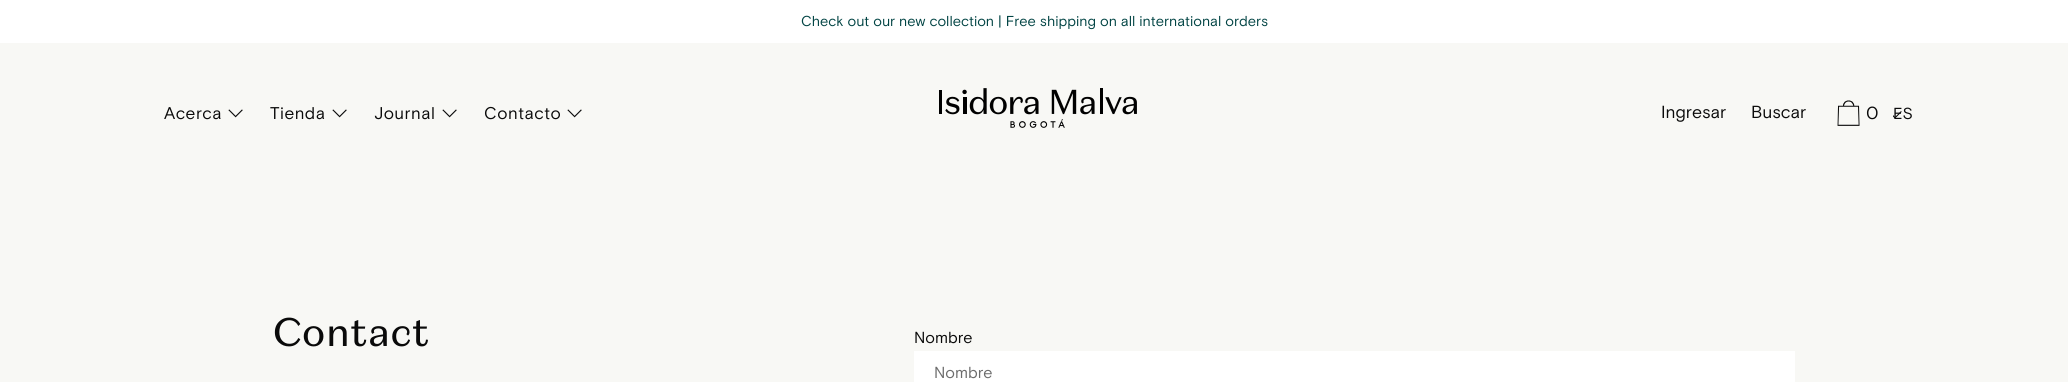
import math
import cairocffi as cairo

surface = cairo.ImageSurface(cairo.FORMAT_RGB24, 2068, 382)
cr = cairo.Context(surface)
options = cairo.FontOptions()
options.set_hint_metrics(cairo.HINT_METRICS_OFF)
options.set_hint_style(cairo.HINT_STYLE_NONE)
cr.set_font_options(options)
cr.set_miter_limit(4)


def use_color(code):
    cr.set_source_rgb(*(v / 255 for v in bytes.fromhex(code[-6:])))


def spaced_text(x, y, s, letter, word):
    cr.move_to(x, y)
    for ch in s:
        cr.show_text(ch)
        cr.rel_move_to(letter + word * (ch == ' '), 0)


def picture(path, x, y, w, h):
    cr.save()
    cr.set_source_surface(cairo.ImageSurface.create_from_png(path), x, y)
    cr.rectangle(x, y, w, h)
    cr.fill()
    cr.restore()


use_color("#f8f8f5")
cr.paint()
use_color("#ffffff")
cr.rectangle(0, 0, 2068, 43)
cr.fill()
cr.select_font_face("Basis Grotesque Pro")
cr.set_font_size(14.4)
use_color("#004343")
cr.move_to(801, 26)
cr.show_text("Check out our new collection | Free shipping on all international orders")
cr.set_font_size(17)
use_color("#0a0a0a")
spaced_text(164, 119, "Acerca", 0.5, 0)
picture("img1.png", 228, 109, 15, 9)
spaced_text(270, 119, "Tienda", 0.5, 0)
picture("img1.png", 332, 109, 15, 9)
spaced_text(374, 119, "Journal", 0.5, 0)
picture("img1.png", 442, 109, 15, 9)
spaced_text(484, 119, "Contacto", 0.5, 0)
picture("img1.png", 567, 109, 15, 9)
picture("img2.png", 939, 88, 198, 40)
cr.set_font_size(17.5)
cr.move_to(1661, 118)
cr.show_text("Ingresar")
cr.move_to(1751, 118)
cr.show_text("Buscar")
picture("img3.png", 1837, 100, 23, 26)
cr.move_to(1866, 119)
cr.show_text("0")
picture("img4.png", 1893, 111, 9, 8)
cr.set_font_size(16)
cr.move_to(1893, 119)
cr.show_text("ES")
cr.select_font_face("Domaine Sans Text")
cr.set_font_size(40)
cr.move_to(273, 346)
cr.show_text("Contact")
cr.select_font_face("Basis Grotesque Pro")
cr.set_font_size(16)
cr.move_to(914, 343)
cr.show_text("Nombre")
use_color("#ffffff")
cr.rectangle(914, 351, 881, 31)
cr.fill()
use_color("#6c6c6c")
cr.move_to(934, 378)
cr.show_text("Nombre")
surface.write_to_png("result.png")
